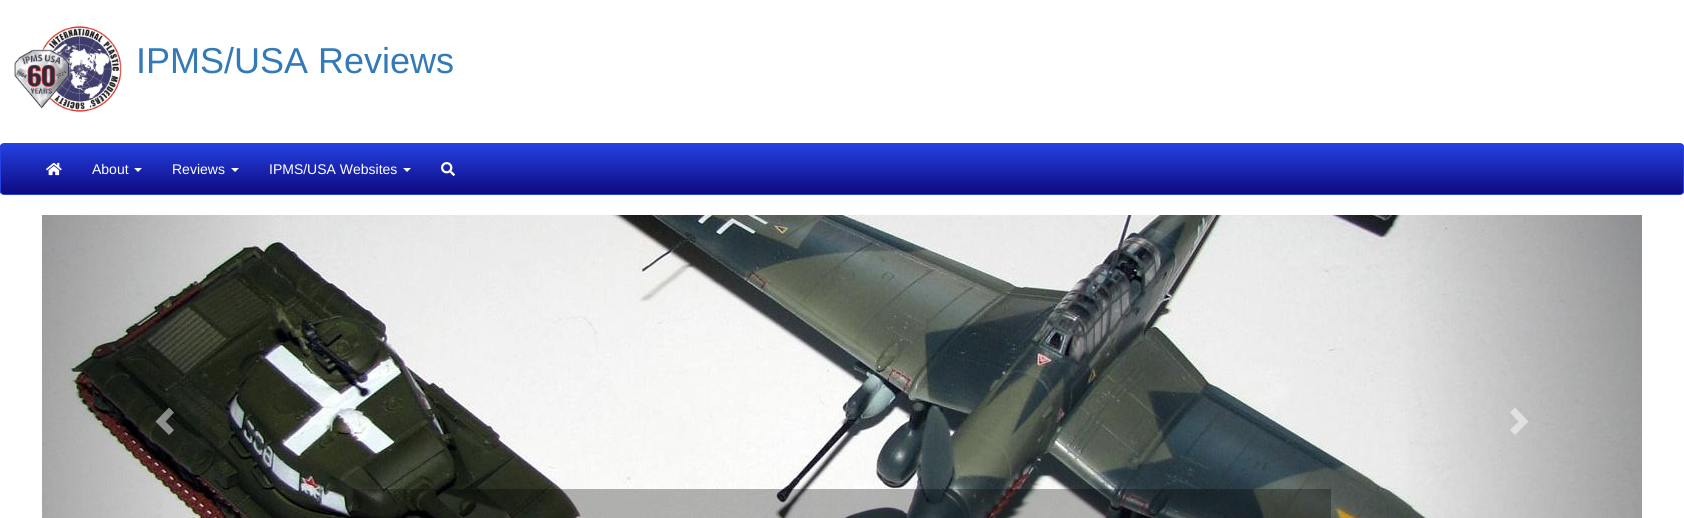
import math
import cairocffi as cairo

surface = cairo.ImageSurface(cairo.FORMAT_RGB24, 1684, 518)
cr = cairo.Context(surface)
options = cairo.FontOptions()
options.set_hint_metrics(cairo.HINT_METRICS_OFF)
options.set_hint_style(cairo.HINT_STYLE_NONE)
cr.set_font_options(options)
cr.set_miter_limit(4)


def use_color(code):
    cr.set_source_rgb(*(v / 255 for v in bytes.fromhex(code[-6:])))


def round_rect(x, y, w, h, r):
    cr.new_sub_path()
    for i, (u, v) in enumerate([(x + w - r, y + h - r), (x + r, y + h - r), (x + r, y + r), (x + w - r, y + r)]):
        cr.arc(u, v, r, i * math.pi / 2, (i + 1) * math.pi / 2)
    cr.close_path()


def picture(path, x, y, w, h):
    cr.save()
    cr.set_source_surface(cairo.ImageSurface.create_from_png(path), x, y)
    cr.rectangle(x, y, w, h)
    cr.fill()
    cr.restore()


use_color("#ffffff")
cr.paint()
picture("img1.png", 14, 26, 108, 86)
cr.select_font_face("Liberation Sans")
cr.set_font_size(36)
use_color("#337ab7")
cr.move_to(136, 73)
cr.show_text("IPMS/USA Reviews")
cr.save()
round_rect(0, 143, 1684, 52, 4)
cr.clip()
gradient = cairo.LinearGradient(842, 144, 842, 194)
gradient.add_color_stop_rgba(0, 0.145, 0.255, 0.886, 1)
gradient.add_color_stop_rgba(1, 0.055, 0.035, 0.502, 1)
cr.set_source(gradient)
cr.rectangle(0, 144, 1684, 50)
cr.fill()
cr.restore()
round_rect(0.5, 143.5, 1683, 51, 3.5)
use_color("#2541e2")
cr.set_line_width(1)
cr.stroke()
picture("img2.png", 46, 162, 16, 14)
cr.set_font_size(14)
use_color("#ffffff")
cr.move_to(92, 174)
cr.show_text("About")
cr.new_path()
cr.move_to(134, 168)
cr.line_to(142, 168)
cr.line_to(138, 172)
cr.close_path()
cr.fill()
cr.move_to(172, 174)
cr.show_text("Reviews")
cr.new_path()
cr.move_to(231, 168)
cr.line_to(239, 168)
cr.line_to(235, 172)
cr.close_path()
cr.fill()
cr.move_to(269, 174)
cr.show_text("IPMS/USA Websites")
cr.new_path()
cr.move_to(403, 168)
cr.line_to(411, 168)
cr.line_to(407, 172)
cr.close_path()
cr.fill()
picture("img3.png", 441, 162, 14, 14)
picture("img4.png", 42, 215, 1600, 303)
cr.set_source_rgba(0, 0, 0, 0.3)
cr.rectangle(353, 489, 978, 29)
cr.fill()
cr.set_source_rgba(1, 1, 1, 0.5)
cr.new_path()
cr.move_to(174, 412.5)
cr.line_to(165.5, 421.5)
cr.line_to(174, 430)
cr.line_to(169, 435)
cr.line_to(155.5, 421.5)
cr.line_to(169, 407.5)
cr.close_path()
cr.fill()
cr.new_path()
cr.move_to(1528.5, 421.5)
cr.line_to(1515, 435)
cr.line_to(1510, 430)
cr.line_to(1518.5, 421.5)
cr.line_to(1510, 412.5)
cr.line_to(1515, 407.5)
cr.close_path()
cr.fill()
surface.write_to_png("result.png")
